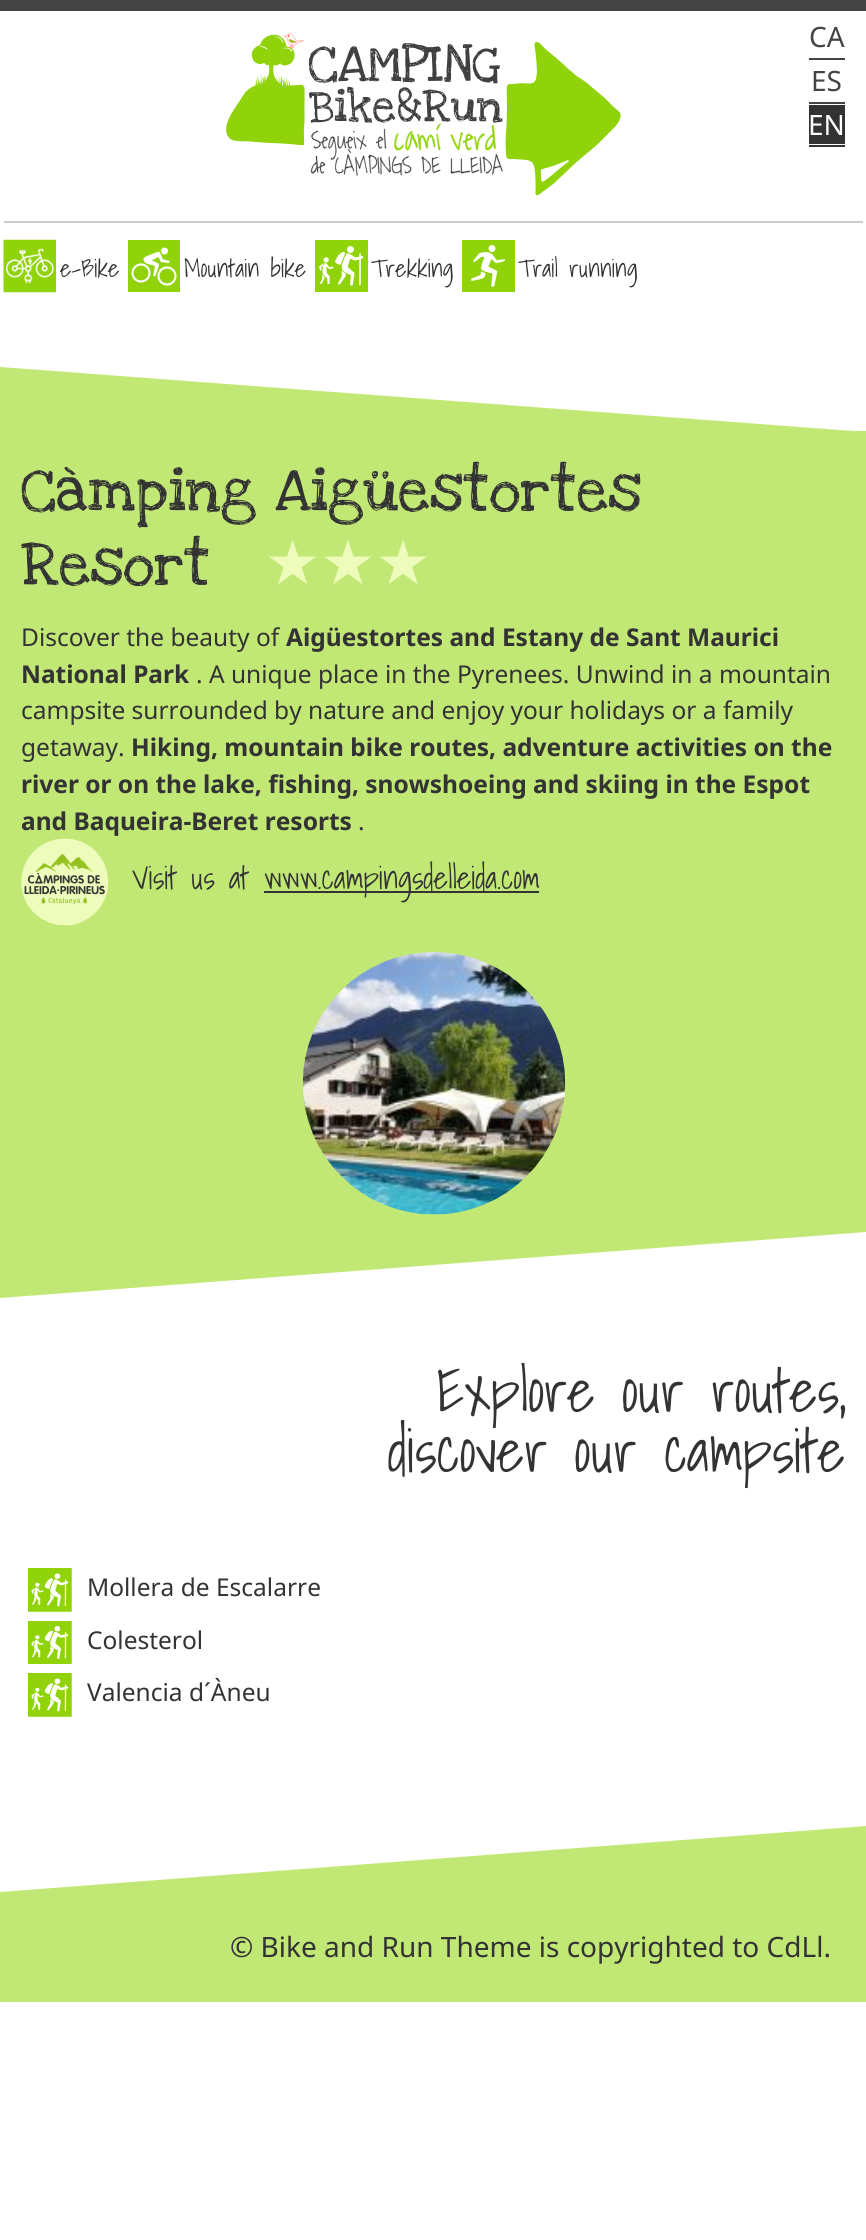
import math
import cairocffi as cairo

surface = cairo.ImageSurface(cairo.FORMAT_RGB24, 866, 2240)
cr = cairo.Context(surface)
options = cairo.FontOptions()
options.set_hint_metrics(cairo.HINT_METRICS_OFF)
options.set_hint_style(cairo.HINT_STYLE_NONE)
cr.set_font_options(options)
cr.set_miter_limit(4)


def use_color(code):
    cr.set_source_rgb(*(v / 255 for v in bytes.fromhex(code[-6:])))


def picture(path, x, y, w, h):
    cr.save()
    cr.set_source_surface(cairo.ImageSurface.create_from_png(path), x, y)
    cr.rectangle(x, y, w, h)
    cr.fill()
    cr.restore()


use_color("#ffffff")
cr.paint()
use_color("#444444")
cr.rectangle(0, 0, 866, 11)
cr.fill()
picture("img1.png", 226, 33, 395, 163)
cr.select_font_face("Noto Sans")
cr.set_font_size(28)
cr.move_to(809, 47)
cr.show_text("CA")
cr.rectangle(809, 58, 36, 2)
cr.fill()
cr.move_to(811, 91)
cr.show_text("ES")
cr.rectangle(809, 102, 36, 2)
cr.fill()
use_color("#333333")
cr.rectangle(809, 105, 36, 39)
cr.fill()
use_color("#ffffff")
cr.move_to(808, 135)
cr.show_text("EN")
use_color("#333333")
cr.rectangle(809, 145, 36, 2)
cr.fill()
use_color("#cccccc")
cr.rectangle(4, 221, 859, 2)
cr.fill()
picture("img2.png", 3, 239, 53, 54)
cr.select_font_face("Shadows Into Light Light")
cr.set_font_size(24.5)
use_color("#333333")
cr.move_to(60, 277)
cr.show_text("e-Bike")
picture("img3.png", 128, 240, 52, 52)
cr.move_to(184, 277)
cr.show_text("Mountain bike")
picture("img4.png", 315, 240, 53, 52)
cr.move_to(371, 277)
cr.show_text("Trekking")
picture("img5.png", 462, 240, 53, 52)
cr.move_to(518, 277)
cr.show_text("Trail running")
use_color("#c1e775")
cr.rectangle(0, 431, 866, 801)
cr.fill()
cr.new_path()
cr.move_to(0, 367)
cr.line_to(0, 432)
cr.line_to(866, 432)
cr.close_path()
cr.fill()
cr.select_font_face("Love Ya Like A Sister")
cr.set_font_size(61.6)
use_color("#333333")
cr.move_to(21, 510)
cr.show_text("Càmping Aigüestortes")
cr.move_to(21, 584)
cr.show_text("Resort")
cr.select_font_face("DejaVu Sans")
use_color("#edfcbb")
cr.move_to(265, 584)
cr.show_text("★★★")
cr.select_font_face("Noto Sans")
cr.set_font_size(24.5)
use_color("#333333")
cr.move_to(21, 646)
cr.show_text("Discover the beauty of")
cr.select_font_face("Noto Sans", cairo.FONT_SLANT_NORMAL, cairo.FONT_WEIGHT_BOLD)
cr.move_to(286, 646)
cr.show_text("Aigüestortes and Estany de Sant Maurici")
cr.move_to(21, 683)
cr.show_text("National Park")
cr.select_font_face("Noto Sans")
cr.move_to(196, 683)
cr.show_text(". A unique place in the Pyrenees. Unwind in a mountain")
cr.move_to(21, 719)
cr.show_text("campsite surrounded by nature and enjoy your holidays or a family")
cr.move_to(21, 756)
cr.show_text("getaway.")
cr.select_font_face("Noto Sans", cairo.FONT_SLANT_NORMAL, cairo.FONT_WEIGHT_BOLD)
cr.move_to(131, 756)
cr.show_text("Hiking, mountain bike routes, adventure activities on the")
cr.move_to(21, 793)
cr.show_text("river or on the lake, fishing, snowshoeing and skiing in the Espot")
cr.move_to(21, 830)
cr.show_text("and Baqueira-Beret resorts")
cr.select_font_face("Noto Sans")
cr.move_to(358, 830)
cr.show_text(".")
picture("img6.png", 21, 838, 88, 88)
cr.select_font_face("Shadows Into Light Light")
cr.set_font_size(31.5)
cr.move_to(132, 889)
cr.show_text("Visit us at")
cr.rectangle(264, 891, 275, 2)
cr.fill()
cr.move_to(264, 889)
cr.show_text("www.campingsdelleida.com")
picture("img7.png", 302, 952, 264, 263)
use_color("#c1e775")
cr.new_path()
cr.move_to(0, 1298)
cr.line_to(866, 1232)
cr.line_to(0, 1232)
cr.close_path()
cr.fill()
cr.set_font_size(59.5)
use_color("#333333")
cr.move_to(436, 1412)
cr.show_text("Explore our routes,")
use_color("#ffffff")
cr.rectangle(520, 1361, 4, 2)
cr.fill()
use_color("#333333")
cr.move_to(388, 1472)
cr.show_text("discover our campsite")
picture("img8.png", 28, 1568, 44, 44)
cr.select_font_face("Noto Sans")
cr.set_font_size(24.5)
cr.move_to(87, 1596)
cr.show_text("Mollera de Escalarre")
picture("img9.png", 28, 1621, 44, 43)
cr.move_to(87, 1649)
cr.show_text("Colesterol")
picture("img8.png", 28, 1673, 44, 44)
cr.move_to(87, 1701)
cr.show_text("Valencia d´Àneu")
use_color("#c1e775")
cr.new_path()
cr.move_to(0, 1892)
cr.line_to(866, 1826)
cr.line_to(866, 1892)
cr.close_path()
cr.fill()
cr.rectangle(0, 1892, 866, 110)
cr.fill()
cr.set_font_size(28)
use_color("#333333")
cr.move_to(230, 1957)
cr.show_text("© Bike and Run Theme is copyrighted to CdLl.")
surface.write_to_png("result.png")
